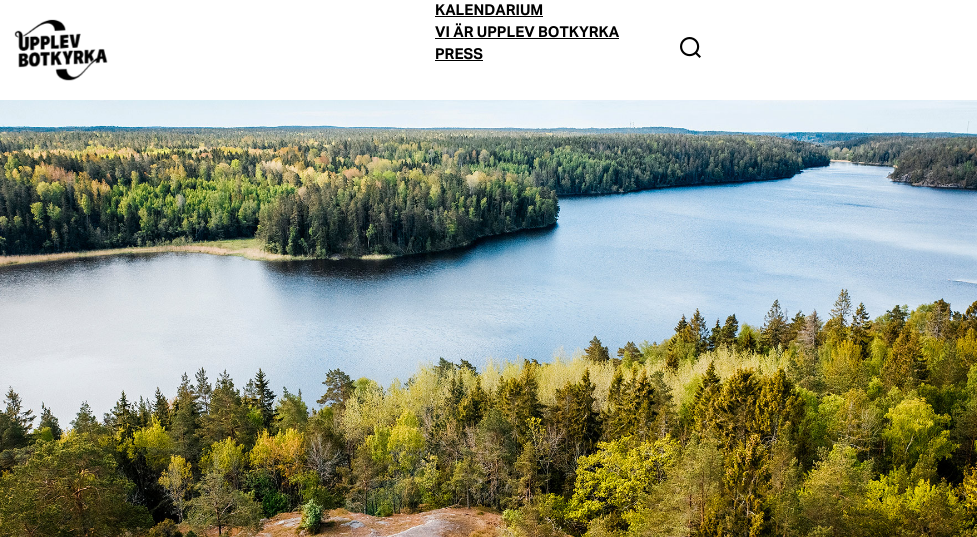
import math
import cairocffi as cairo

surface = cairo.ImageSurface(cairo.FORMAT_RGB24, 977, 537)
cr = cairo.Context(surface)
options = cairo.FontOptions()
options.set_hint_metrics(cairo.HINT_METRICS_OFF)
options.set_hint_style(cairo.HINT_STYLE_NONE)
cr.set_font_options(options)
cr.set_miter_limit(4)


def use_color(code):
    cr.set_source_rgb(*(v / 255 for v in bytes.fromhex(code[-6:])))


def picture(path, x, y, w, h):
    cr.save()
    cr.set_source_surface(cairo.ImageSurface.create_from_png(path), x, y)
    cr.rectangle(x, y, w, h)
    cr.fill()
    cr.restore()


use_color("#ffffff")
cr.paint()
picture("img1.png", 14, 19, 94, 62)
cr.select_font_face("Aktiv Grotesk", cairo.FONT_SLANT_NORMAL, cairo.FONT_WEIGHT_BOLD)
cr.set_font_size(15)
use_color("#000000")
cr.move_to(435, 15)
cr.show_text("KALENDARIUM")
cr.rectangle(435, 16, 108, 1)
cr.fill()
cr.move_to(435, 37)
cr.show_text("VI ÄR UPPLEV BOTKYRKA")
cr.rectangle(435, 38, 184, 1)
cr.fill()
cr.move_to(435, 59)
cr.show_text("PRESS")
cr.rectangle(435, 60, 48, 1)
cr.fill()
picture("img2.png", 680, 37, 21, 21)
picture("img3.png", 0, 100, 977, 437)
surface.write_to_png("result.png")
